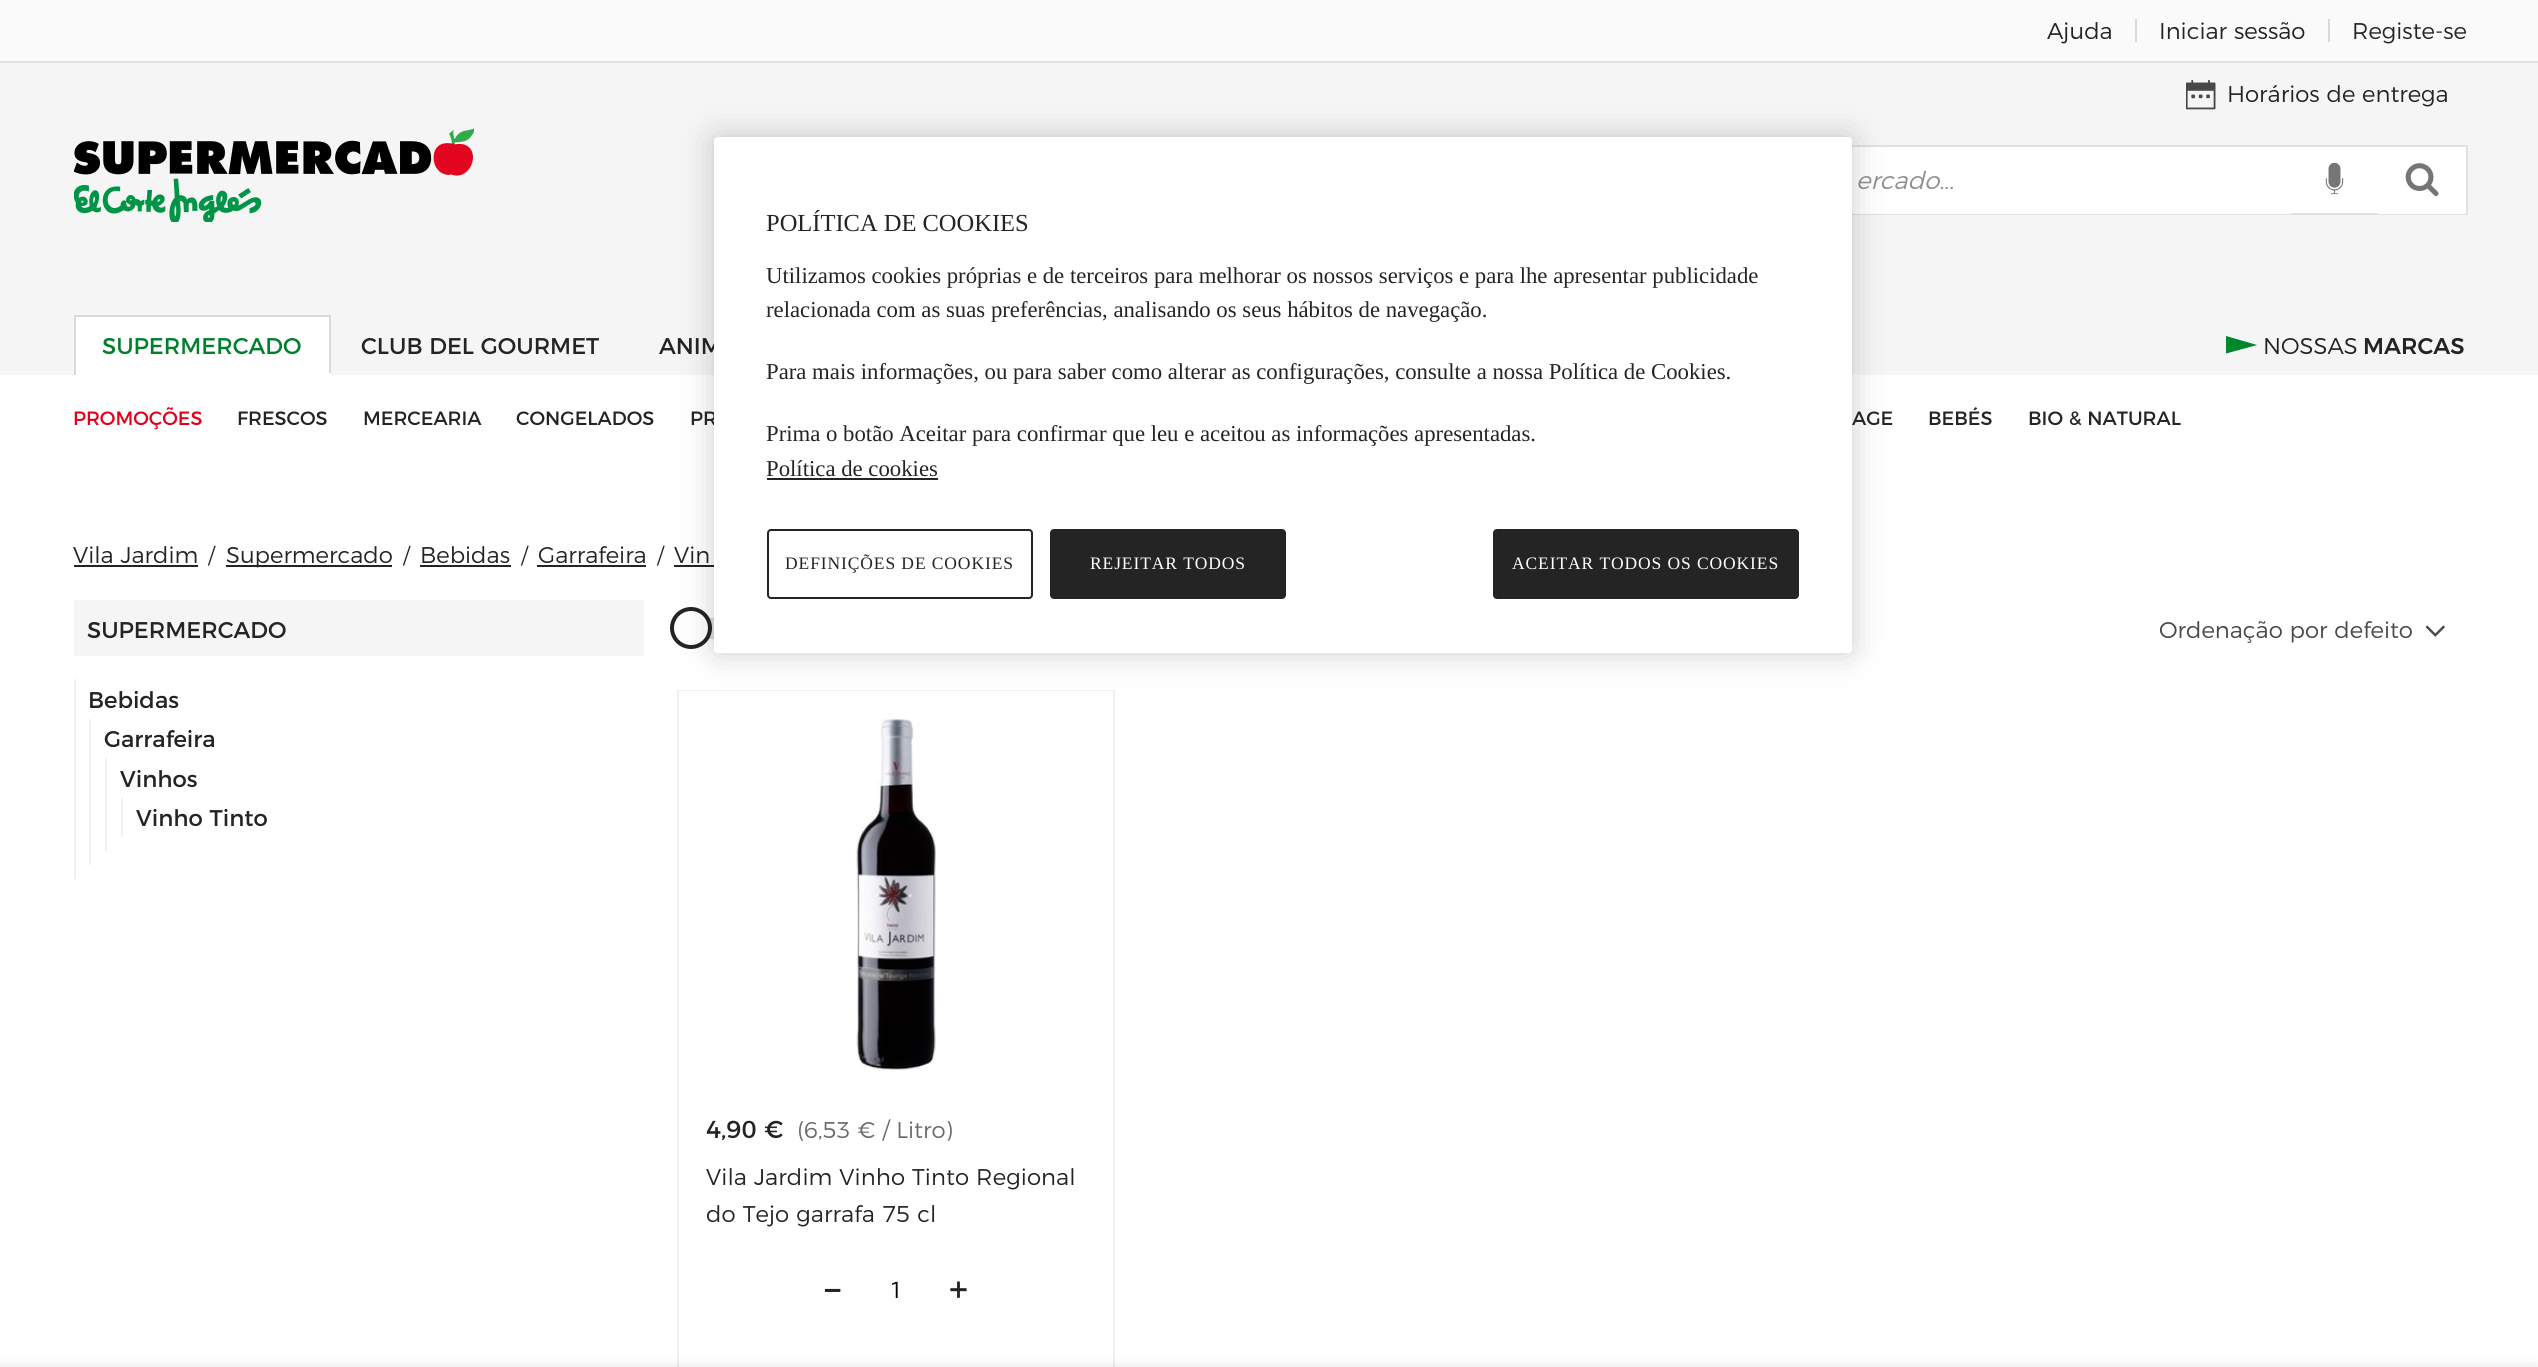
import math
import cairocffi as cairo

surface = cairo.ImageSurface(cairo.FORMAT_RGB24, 2538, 1367)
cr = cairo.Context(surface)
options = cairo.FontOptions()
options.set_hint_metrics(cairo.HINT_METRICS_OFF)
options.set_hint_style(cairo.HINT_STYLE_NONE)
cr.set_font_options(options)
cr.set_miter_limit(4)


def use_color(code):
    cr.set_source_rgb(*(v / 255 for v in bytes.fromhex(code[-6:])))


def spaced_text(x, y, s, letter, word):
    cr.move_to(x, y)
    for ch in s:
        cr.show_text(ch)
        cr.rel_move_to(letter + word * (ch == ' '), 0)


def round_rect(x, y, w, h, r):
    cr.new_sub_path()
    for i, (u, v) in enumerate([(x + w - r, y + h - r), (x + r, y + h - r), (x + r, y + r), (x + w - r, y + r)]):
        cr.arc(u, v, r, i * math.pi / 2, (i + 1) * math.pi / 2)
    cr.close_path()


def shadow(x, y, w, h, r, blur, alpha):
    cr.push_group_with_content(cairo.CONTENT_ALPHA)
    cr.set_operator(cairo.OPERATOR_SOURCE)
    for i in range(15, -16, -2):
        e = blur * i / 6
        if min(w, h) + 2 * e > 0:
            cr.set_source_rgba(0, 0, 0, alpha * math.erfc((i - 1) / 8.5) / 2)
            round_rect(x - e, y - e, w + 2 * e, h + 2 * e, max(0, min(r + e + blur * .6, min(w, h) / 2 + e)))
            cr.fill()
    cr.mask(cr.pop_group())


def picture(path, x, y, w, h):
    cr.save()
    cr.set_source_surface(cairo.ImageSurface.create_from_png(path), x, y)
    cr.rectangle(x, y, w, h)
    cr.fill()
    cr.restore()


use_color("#ffffff")
cr.paint()
use_color("#fafafa")
cr.rectangle(0, 0, 2538, 61)
cr.fill()
use_color("#e1e1e1")
cr.rectangle(0, 61, 2538, 2)
cr.fill()
cr.select_font_face("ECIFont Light")
cr.set_font_size(22.75)
use_color("#242424")
cr.move_to(2047, 39)
cr.show_text("Ajuda")
use_color("#d9d9d9")
cr.rectangle(2135, 19, 2, 23)
cr.fill()
use_color("#242424")
cr.move_to(2159, 39)
cr.show_text("Iniciar sessão")
use_color("#d9d9d9")
cr.rectangle(2328, 19, 2, 23)
cr.fill()
use_color("#242424")
cr.move_to(2352, 39)
cr.show_text("Registe-se")
use_color("#f5f5f5")
cr.rectangle(0, 63, 2538, 312)
cr.fill()
picture("img1.png", 2186, 79, 30, 31)
use_color("#242424")
cr.move_to(2227, 102)
cr.show_text("Horários de entrega")
picture("img2.png", 74, 128, 400, 94)
use_color("#ffffff")
cr.rectangle(2291, 147, 87, 66)
cr.fill()
cr.rectangle(1546, 146, 921, 68)
use_color("#e1e1e1")
cr.stroke()
use_color("#ffffff")
cr.rectangle(1852, 147, 439, 67)
cr.fill()
cr.select_font_face("ECIFont Light", cairo.FONT_SLANT_ITALIC)
cr.set_font_size(24.5)
use_color("#8f8f8f")
cr.move_to(1856, 189)
cr.show_text("ercado...")
picture("img3.png", 2325, 162, 19, 33)
use_color("#ffffff")
cr.rectangle(2378, 147, 88, 67)
cr.fill()
picture("img4.png", 2405, 163, 34, 33)
cr.rectangle(76, 317, 253, 56)
cr.fill()
use_color("#d9d9d9")
cr.rectangle(74, 315, 257, 2)
cr.fill()
cr.rectangle(329, 315, 2, 60)
cr.fill()
use_color("#ffffff")
cr.rectangle(74, 373, 257, 2)
cr.fill()
use_color("#d9d9d9")
cr.rectangle(74, 315, 2, 60)
cr.fill()
cr.select_font_face("ECIFont")
cr.set_font_size(22.75)
use_color("#00802d")
cr.move_to(102, 354)
cr.show_text("SUPERMERCADO")
use_color("#242424")
cr.move_to(361, 354)
cr.show_text("CLUB DEL GOURMET")
cr.move_to(659, 354)
cr.show_text("ANIM")
use_color("#00862d")
cr.new_path()
cr.move_to(2226, 336)
cr.line_to(2226, 353.5)
cr.line_to(2257, 345)
cr.close_path()
cr.fill()
cr.select_font_face("ECIFont Light")
use_color("#242424")
cr.move_to(2263, 354)
cr.show_text("NOSSAS")
cr.select_font_face("ECIFont Medium")
cr.move_to(2363, 354)
cr.show_text("MARCAS")
cr.rectangle(674, 565, 40, 2)
cr.fill()
use_color("#e1e1e1")
cr.rectangle(710, 620, 4, 17)
cr.fill()
cr.rectangle(687, 619, 68, 19)
use_color("#d9d9d9")
cr.stroke()
use_color("#ffffff")
cr.arc(691, 628, 19, 0, 2 * math.pi)
cr.fill_preserve()
use_color("#242424")
cr.set_line_width(4)
cr.stroke()
cr.rectangle(678, 691, 436, 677)
use_color("#f0f0f0")
cr.set_line_width(2)
cr.stroke()
use_color("#ffffff")
cr.rectangle(679, 691, 434, 1)
cr.fill()
use_color("#000000")
shadow(714, 137, 1138, 516, 4, 16, 0.2)
cr.select_font_face("ECIFont")
cr.set_font_size(19.25)
use_color("#242424")
cr.move_to(690, 425)
cr.show_text("PR")
use_color("#ffffff")
round_rect(714, 137, 1138, 516, 4)
cr.fill()
cr.select_font_face("Liberation Serif")
cr.set_font_size(24.5)
use_color("#242424")
cr.move_to(766, 231)
cr.show_text("POLÍTICA DE COOKIES")
cr.set_font_size(22.75)
cr.move_to(766, 283)
cr.show_text("Utilizamos cookies próprias e de terceiros para melhorar os nossos serviços e para lhe apresentar publicidade")
cr.move_to(766, 317)
cr.show_text("relacionada com as suas preferências, analisando os seus hábitos de navegação.")
cr.move_to(766, 379)
cr.show_text("Para mais informações, ou para saber como alterar as configurações, consulte a nossa Política de Cookies.")
cr.move_to(766, 441)
cr.show_text("Prima o botão Aceitar para confirmar que leu e aceitou as informações apresentadas.")
cr.move_to(766, 476)
cr.show_text("Política de cookies")
cr.rectangle(767, 478, 171, 2)
cr.fill()
round_rect(768, 530, 264, 68, 3)
cr.stroke()
cr.set_font_size(17.5)
spaced_text(785, 569, "DEFINIÇÕES DE COOKIES", 0.9, 0)
round_rect(1051, 530, 234, 68, 3)
cr.fill_preserve()
cr.stroke()
use_color("#ffffff")
spaced_text(1090, 569, "REJEITAR TODOS", 0.9, 0)
use_color("#242424")
round_rect(1494, 530, 304, 68, 3)
cr.fill_preserve()
cr.stroke()
use_color("#ffffff")
spaced_text(1512, 569, "ACEITAR TODOS OS COOKIES", 0.9, 0)
cr.select_font_face("ECIFont")
cr.set_font_size(19.25)
use_color("#e2001a")
cr.move_to(73, 425)
cr.show_text("PROMOÇÕES")
use_color("#242424")
cr.move_to(237, 425)
cr.show_text("FRESCOS")
cr.move_to(363, 425)
cr.show_text("MERCEARIA")
cr.move_to(516, 425)
cr.show_text("CONGELADOS")
cr.move_to(1852, 425)
cr.show_text("AGE")
cr.move_to(1928, 425)
cr.show_text("BEBÉS")
cr.move_to(2028, 425)
cr.show_text("BIO & NATURAL")
cr.select_font_face("ECIFont Light")
cr.set_font_size(22.75)
cr.move_to(73, 563)
cr.show_text("Vila Jardim")
cr.rectangle(74, 565, 124, 2)
cr.fill()
cr.set_font_size(21)
cr.move_to(208, 563)
cr.show_text("/")
cr.rectangle(226, 565, 166, 2)
cr.fill()
cr.set_font_size(22.75)
cr.move_to(226, 563)
cr.show_text("Supermercado")
cr.set_font_size(21)
cr.move_to(403, 563)
cr.show_text("/")
cr.set_font_size(22.75)
cr.move_to(420, 563)
cr.show_text("Bebidas")
cr.rectangle(420, 565, 91, 2)
cr.fill()
cr.set_font_size(21)
cr.move_to(521, 563)
cr.show_text("/")
cr.set_font_size(22.75)
cr.move_to(538, 563)
cr.show_text("Garrafeira")
cr.rectangle(537, 565, 109, 2)
cr.fill()
cr.set_font_size(21)
cr.move_to(657, 563)
cr.show_text("/")
cr.set_font_size(22.75)
cr.move_to(674, 563)
cr.show_text("Vin")
use_color("#f5f5f5")
cr.rectangle(74, 600, 570, 56)
cr.fill()
cr.select_font_face("ECIFont")
use_color("#242424")
cr.move_to(87, 638)
cr.show_text("SUPERMERCADO")
use_color("#f0f0f0")
cr.rectangle(74, 679, 2, 200)
cr.fill()
use_color("#242424")
cr.move_to(88, 708)
cr.show_text("Bebidas")
use_color("#f0f0f0")
cr.rectangle(89, 719, 2, 146)
cr.fill()
use_color("#242424")
cr.move_to(104, 747)
cr.show_text("Garrafeira")
use_color("#f0f0f0")
cr.rectangle(105, 758, 2, 93)
cr.fill()
use_color("#242424")
cr.move_to(120, 787)
cr.show_text("Vinhos")
use_color("#f0f0f0")
cr.rectangle(121, 798, 2, 39)
cr.fill()
use_color("#242424")
cr.move_to(136, 826)
cr.show_text("Vinho Tinto")
cr.select_font_face("ECIFont Light")
use_color("#484848")
cr.move_to(2159, 638)
cr.show_text("Ordenação por defeito")
picture("img5.png", 2425, 625, 20, 12)
picture("img6.png", 856, 719, 80, 351)
cr.select_font_face("ECIFont")
cr.set_font_size(24.5)
use_color("#242424")
cr.move_to(706, 1138)
cr.show_text("4,90 €")
cr.select_font_face("ECIFont Light")
cr.set_font_size(22.75)
use_color("#6a6a6a")
cr.move_to(797, 1138)
cr.show_text("(6,53 € / Litro)")
use_color("#242424")
spaced_text(706, 1185, "Vila Jardim Vinho Tinto Regional", 0.1, 0)
spaced_text(706, 1222, "do Tejo garrafa 75 cl", 0.1, 0)
cr.select_font_face("ECIFont")
cr.set_font_size(38)
cr.move_to(825, 1302)
cr.show_text("–")
cr.select_font_face("ECIFont Light")
cr.set_font_size(23)
use_color("#000000")
cr.move_to(890, 1298)
cr.show_text("1")
cr.select_font_face("ECIFont")
cr.set_font_size(38)
use_color("#242424")
cr.move_to(949, 1302)
cr.show_text("+")
use_color("#5c5c5c")
shadow(-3, 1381, 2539, 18, 0, 10.5, 1)
surface.write_to_png("result.png")
